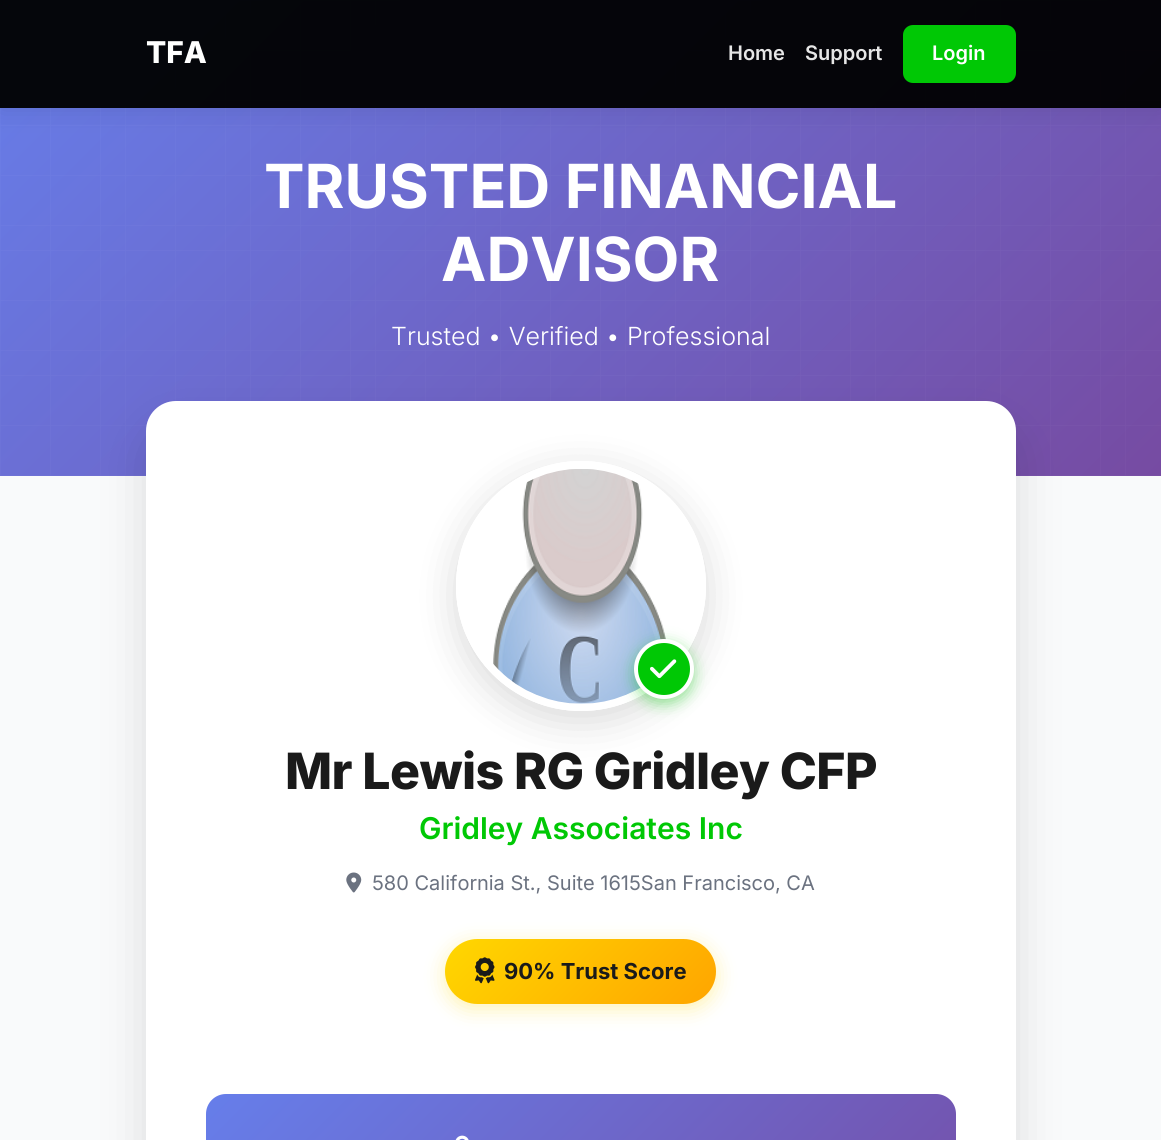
import math
import cairocffi as cairo

surface = cairo.ImageSurface(cairo.FORMAT_RGB24, 1161, 1140)
cr = cairo.Context(surface)
options = cairo.FontOptions()
options.set_hint_metrics(cairo.HINT_METRICS_OFF)
options.set_hint_style(cairo.HINT_STYLE_NONE)
cr.set_font_options(options)
cr.set_miter_limit(4)


def use_color(code):
    cr.set_source_rgb(*(v / 255 for v in bytes.fromhex(code[-6:])))


def spaced_text(x, y, s, letter, word):
    cr.move_to(x, y)
    for ch in s:
        cr.show_text(ch)
        cr.rel_move_to(letter + word * (ch == ' '), 0)


def round_rect(x, y, w, h, r):
    cr.new_sub_path()
    for i, (u, v) in enumerate([(x + w - r, y + h - r), (x + r, y + h - r), (x + r, y + r), (x + w - r, y + r)]):
        cr.arc(u, v, r, i * math.pi / 2, (i + 1) * math.pi / 2)
    cr.close_path()


def shadow(x, y, w, h, r, blur, alpha):
    cr.push_group_with_content(cairo.CONTENT_ALPHA)
    cr.set_operator(cairo.OPERATOR_SOURCE)
    for i in range(15, -16, -2):
        e = blur * i / 6
        if min(w, h) + 2 * e > 0:
            cr.set_source_rgba(0, 0, 0, alpha * math.erfc((i - 1) / 8.5) / 2)
            round_rect(x - e, y - e, w + 2 * e, h + 2 * e, max(0, min(r + e + blur * .6, min(w, h) / 2 + e)))
            cr.fill()
    cr.mask(cr.pop_group())


def picture(path, x, y, w, h):
    cr.save()
    cr.set_source_surface(cairo.ImageSurface.create_from_png(path), x, y)
    cr.rectangle(x, y, w, h)
    cr.fill()
    cr.restore()


use_color("#f9fafb")
cr.paint()
gradient = cairo.LinearGradient(171, -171, 990, 648)
gradient.add_color_stop_rgba(0, 0.4, 0.494, 0.918, 1)
gradient.add_color_stop_rgba(1, 0.463, 0.294, 0.635, 1)
cr.set_source(gradient)
cr.rectangle(0, 0, 1161, 476)
cr.fill()
cr.select_font_face("Inter", cairo.FONT_SLANT_NORMAL, cairo.FONT_WEIGHT_BOLD)
cr.set_font_size(60.8)
use_color("#ffffff")
cr.move_to(264, 208)
cr.show_text("TRUSTED FINANCIAL")
cr.move_to(441, 281)
cr.show_text("ADVISOR")
cr.select_font_face("Inter Light")
cr.set_font_size(25)
cr.move_to(391, 345)
cr.show_text("Trusted • Verified • Professional")
picture("img1.png", 0, 0, 1161, 476)
cr.save()
cr.set_fill_rule(cairo.FILL_RULE_EVEN_ODD)
cr.new_path()
cr.move_to(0, 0)
cr.line_to(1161, 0)
cr.line_to(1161, 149)
cr.line_to(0, 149)
cr.close_path()
cr.move_to(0, 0)
cr.line_to(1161, 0)
cr.line_to(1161, 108)
cr.line_to(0, 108)
cr.close_path()
cr.clip()
use_color("#000000")
shadow(0, 3, 1161, 107, 0, 12.5, 0.1)
cr.restore()
cr.set_source_rgba(0, 0, 0, 0.95)
cr.rectangle(0, 0, 1161, 108)
cr.fill()
cr.select_font_face("Inter ExtraBold")
cr.set_font_size(30)
use_color("#ffffff")
cr.move_to(146, 63)
cr.show_text("TFA")
cr.select_font_face("Inter SemiBold")
cr.set_font_size(20)
use_color("#e6e6e6")
cr.move_to(728, 60)
cr.show_text("Home")
cr.move_to(805, 60)
cr.show_text("Support")
use_color("#00c805")
round_rect(903, 25, 113, 58, 10)
cr.fill()
use_color("#ffffff")
cr.move_to(932, 60)
cr.show_text("Login")
use_color("#000000")
shadow(146, 426, 870, 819, 30, 25, 0.12)
use_color("#ffffff")
round_rect(146, 401, 870, 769, 30)
cr.fill()
cr.save()
cr.set_fill_rule(cairo.FILL_RULE_EVEN_ODD)
cr.new_path()
cr.move_to(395, 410)
cr.line_to(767, 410)
cr.line_to(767, 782)
cr.line_to(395, 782)
cr.close_path()
cr.move_to(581, 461)
cr.curve_to(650, 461, 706, 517, 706, 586)
cr.curve_to(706, 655, 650, 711, 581, 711)
cr.curve_to(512, 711, 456, 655, 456, 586)
cr.curve_to(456, 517, 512, 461, 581, 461)
cr.close_path()
cr.clip()
use_color("#000000")
shadow(456, 471, 250, 250, 125, 20, 0.15)
cr.restore()
cr.arc(581, 586, 121, 0, 2 * math.pi)
cr.set_line_width(8)
cr.stroke()
picture("img2.png", 493, 469, 177, 235)
use_color("#00c805")
shadow(634, 644, 60, 60, 30, 7.5, 0.4)
use_color("#00c805")
cr.arc(664, 669, 28, 0, 2 * math.pi)
cr.fill_preserve()
use_color("#ffffff")
cr.set_line_width(4)
cr.stroke()
picture("img3.png", 650, 659, 27, 20)
cr.select_font_face("Inter ExtraBold")
cr.set_font_size(50)
use_color("#1a1a1a")
spaced_text(285, 789, "Mr Lewis RG Gridley CFP", -0.6, 0)
cr.select_font_face("Inter SemiBold")
cr.set_font_size(30)
use_color("#00c805")
cr.move_to(419, 839)
cr.show_text("Gridley Associates Inc")
picture("img4.png", 346, 872, 16, 21)
cr.select_font_face("Inter")
cr.set_font_size(20)
use_color("#6b7280")
cr.move_to(372, 890)
cr.show_text("580 California St., Suite 1615San Francisco, CA")
use_color("#ffd700")
shadow(445, 944, 271, 65, 32.5, 10, 0.3)
gradient = cairo.LinearGradient(497, 887, 665, 1055)
gradient.add_color_stop_rgba(0, 1, 0.843, 0, 1)
gradient.add_color_stop_rgba(1, 1, 0.647, 0, 1)
cr.set_source(gradient)
round_rect(445, 939, 271, 65, 32.5)
cr.fill()
picture("img5.png", 475, 957, 20, 27)
cr.select_font_face("Inter", cairo.FONT_SLANT_NORMAL, cairo.FONT_WEIGHT_BOLD)
cr.set_font_size(22)
use_color("#1a1a1a")
cr.move_to(504, 979)
cr.show_text("90% Trust Score")
gradient = cairo.LinearGradient(333, 967, 829, 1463)
gradient.add_color_stop_rgba(0, 0.4, 0.494, 0.918, 1)
gradient.add_color_stop_rgba(1, 0.463, 0.294, 0.635, 1)
cr.set_source(gradient)
round_rect(206, 1094, 750, 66, 20)
cr.fill()
picture("img6.png", 455, 1135, 14, 5)
surface.write_to_png("result.png")
